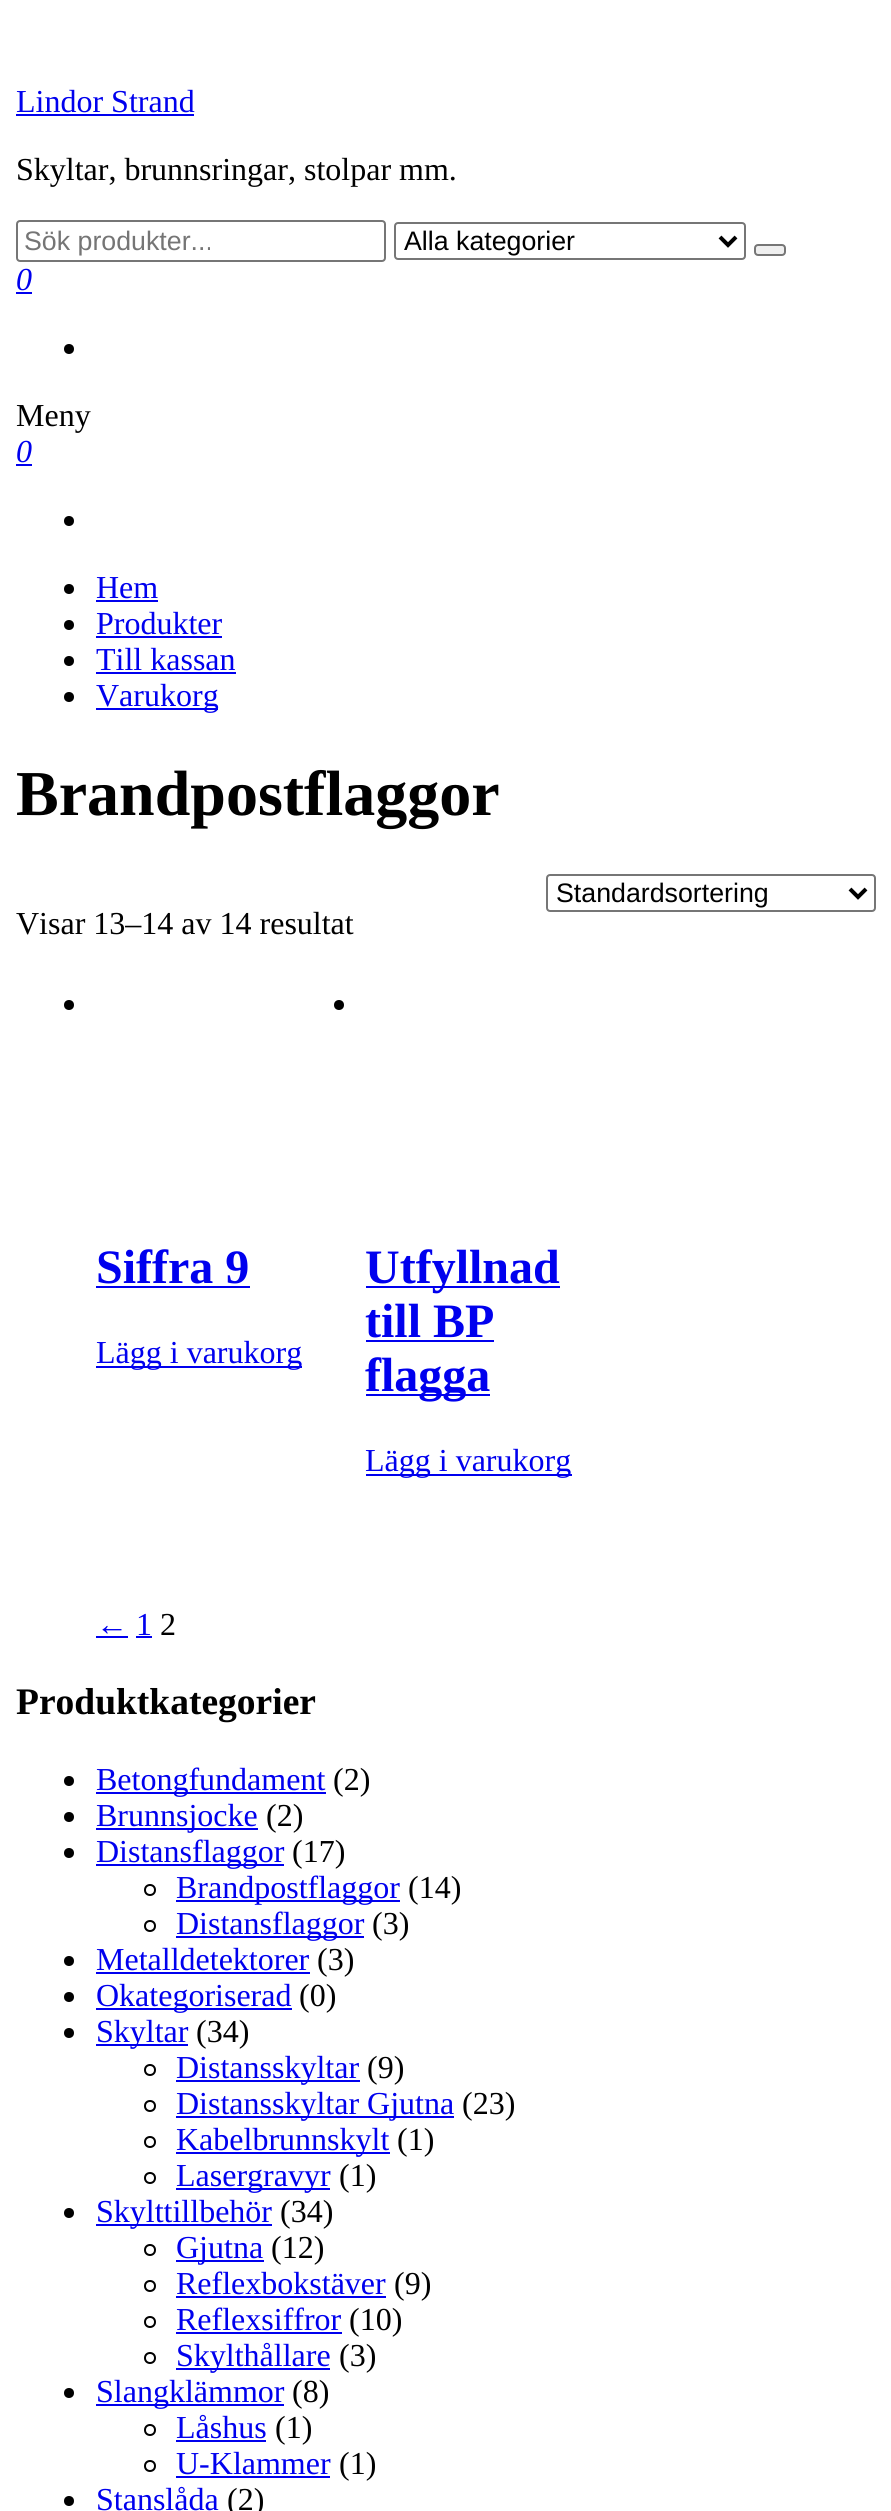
import math
import cairocffi as cairo

surface = cairo.ImageSurface(cairo.FORMAT_RGB24, 891, 2511)
cr = cairo.Context(surface)
options = cairo.FontOptions()
options.set_hint_metrics(cairo.HINT_METRICS_OFF)
options.set_hint_style(cairo.HINT_STYLE_NONE)
cr.set_font_options(options)
cr.set_miter_limit(4)


def use_color(code):
    cr.set_source_rgb(*(v / 255 for v in bytes.fromhex(code[-6:])))


def round_rect(x, y, w, h, r):
    cr.new_sub_path()
    for i, (u, v) in enumerate([(x + w - r, y + h - r), (x + r, y + h - r), (x + r, y + r), (x + w - r, y + r)]):
        cr.arc(u, v, r, i * math.pi / 2, (i + 1) * math.pi / 2)
    cr.close_path()


use_color("#ffffff")
cr.paint()
cr.select_font_face("Liberation Serif")
cr.set_font_size(32)
use_color("#0000ee")
cr.move_to(16, 112)
cr.show_text("Lindor Strand")
cr.rectangle(16, 114, 178, 2)
cr.fill()
use_color("#000000")
cr.move_to(16, 180)
cr.show_text("Skyltar, brunnsringar, stolpar mm.")
round_rect(17, 221, 368, 40, 3)
use_color("#767676")
cr.stroke()
cr.select_font_face("Liberation Sans")
cr.set_font_size(26.75)
use_color("#757575")
cr.move_to(24, 250)
cr.show_text("Sök produkter...")
round_rect(395, 223, 350, 36, 3)
use_color("#767676")
cr.stroke()
cr.new_path()
cr.move_to(720, 237)
cr.line_to(728, 245)
cr.line_to(736, 237)
use_color("#000000")
cr.set_line_width(4)
cr.stroke()
cr.move_to(404, 250)
cr.show_text("Alla kategorier")
use_color("#efefef")
round_rect(755, 245, 30, 10, 3)
cr.fill_preserve()
use_color("#767676")
cr.set_line_width(2)
cr.stroke()
cr.select_font_face("Liberation Serif", cairo.FONT_SLANT_ITALIC)
cr.set_font_size(32)
use_color("#0000ee")
cr.move_to(16, 290)
cr.show_text("0")
cr.rectangle(16, 292, 16, 2)
cr.fill()
use_color("#000000")
cr.arc(69, 349, 5, 0, 2 * math.pi)
cr.fill()
cr.select_font_face("Liberation Serif")
cr.move_to(16, 426)
cr.show_text("Meny")
cr.select_font_face("Liberation Serif", cairo.FONT_SLANT_ITALIC)
use_color("#0000ee")
cr.move_to(16, 462)
cr.show_text("0")
cr.rectangle(16, 464, 16, 2)
cr.fill()
use_color("#000000")
cr.arc(69, 521, 5, 0, 2 * math.pi)
cr.fill()
cr.arc(69, 589, 5, 0, 2 * math.pi)
cr.fill()
cr.select_font_face("Liberation Serif")
use_color("#0000ee")
cr.move_to(96, 598)
cr.show_text("Hem")
cr.rectangle(96, 600, 62, 2)
cr.fill()
use_color("#000000")
cr.arc(69, 625, 5, 0, 2 * math.pi)
cr.fill()
use_color("#0000ee")
cr.move_to(96, 634)
cr.show_text("Produkter")
cr.rectangle(96, 636, 126, 2)
cr.fill()
use_color("#000000")
cr.arc(69, 661, 5, 0, 2 * math.pi)
cr.fill()
use_color("#0000ee")
cr.move_to(96, 670)
cr.show_text("Till kassan")
cr.rectangle(96, 672, 140, 2)
cr.fill()
use_color("#000000")
cr.arc(69, 697, 5, 0, 2 * math.pi)
cr.fill()
use_color("#0000ee")
cr.rectangle(96, 708, 122, 2)
cr.fill()
cr.move_to(96, 706)
cr.show_text("Varukorg")
cr.select_font_face("Liberation Serif", cairo.FONT_SLANT_NORMAL, cairo.FONT_WEIGHT_BOLD)
cr.set_font_size(64)
use_color("#000000")
cr.move_to(16, 815)
cr.show_text("Brandpostflaggor")
round_rect(547, 875, 328, 36, 3)
use_color("#767676")
cr.stroke()
cr.new_path()
cr.move_to(850, 889)
cr.line_to(858, 897)
cr.line_to(866, 889)
use_color("#000000")
cr.set_line_width(4)
cr.stroke()
cr.select_font_face("Liberation Sans")
cr.set_font_size(26.75)
cr.move_to(556, 902)
cr.show_text("Standardsortering")
cr.select_font_face("Liberation Serif")
cr.set_font_size(32)
cr.move_to(16, 934)
cr.show_text("Visar 13–14 av 14 resultat")
cr.new_path()
cr.arc(69, 1005, 5, 0, 2 * math.pi)
cr.fill()
cr.select_font_face("Liberation Serif", cairo.FONT_SLANT_NORMAL, cairo.FONT_WEIGHT_BOLD)
cr.set_font_size(48)
use_color("#0000ee")
cr.move_to(96, 1283)
cr.show_text("Siffra 9")
cr.rectangle(96, 1286, 154, 2)
cr.fill()
cr.rectangle(96, 1366, 206, 2)
cr.fill()
cr.select_font_face("Liberation Serif")
cr.set_font_size(32)
cr.move_to(96, 1363)
cr.show_text("Lägg i varukorg")
use_color("#000000")
cr.new_path()
cr.arc(339, 1005, 5, 0, 2 * math.pi)
cr.fill()
use_color("#0000ee")
cr.rectangle(366, 1286, 194, 2)
cr.fill()
cr.select_font_face("Liberation Serif", cairo.FONT_SLANT_NORMAL, cairo.FONT_WEIGHT_BOLD)
cr.set_font_size(48)
cr.move_to(365, 1283)
cr.show_text("Utfyllnad")
cr.move_to(365, 1337)
cr.show_text("till BP")
cr.rectangle(366, 1340, 128, 2)
cr.fill()
cr.rectangle(366, 1394, 124, 2)
cr.fill()
cr.move_to(365, 1391)
cr.show_text("flagga")
cr.rectangle(366, 1474, 206, 2)
cr.fill()
cr.select_font_face("Liberation Serif")
cr.set_font_size(32)
cr.move_to(365, 1471)
cr.show_text("Lägg i varukorg")
cr.move_to(96, 1635)
cr.show_text("← 1")
cr.rectangle(96, 1636, 32, 2)
cr.fill()
use_color("#000000")
cr.move_to(160, 1635)
cr.show_text("2")
use_color("#0000ee")
cr.rectangle(136, 1636, 16, 2)
cr.fill()
cr.select_font_face("Liberation Serif", cairo.FONT_SLANT_NORMAL, cairo.FONT_WEIGHT_BOLD)
cr.set_font_size(37.5)
use_color("#000000")
cr.move_to(16, 1714)
cr.show_text("Produktkategorier")
cr.new_path()
cr.arc(69, 1781, 5, 0, 2 * math.pi)
cr.fill()
use_color("#0000ee")
cr.rectangle(96, 1792, 230, 2)
cr.fill()
cr.select_font_face("Liberation Serif")
cr.set_font_size(32)
cr.move_to(96, 1790)
cr.show_text("Betongfundament")
use_color("#000000")
cr.move_to(333, 1790)
cr.show_text("(2)")
cr.new_path()
cr.arc(69, 1817, 5, 0, 2 * math.pi)
cr.fill()
use_color("#0000ee")
cr.rectangle(96, 1828, 162, 2)
cr.fill()
cr.move_to(96, 1826)
cr.show_text("Brunnsjocke")
use_color("#000000")
cr.move_to(266, 1826)
cr.show_text("(2)")
cr.new_path()
cr.arc(69, 1853, 5, 0, 2 * math.pi)
cr.fill()
use_color("#0000ee")
cr.rectangle(96, 1864, 188, 2)
cr.fill()
cr.move_to(96, 1862)
cr.show_text("Distansflaggor")
use_color("#000000")
cr.move_to(292, 1862)
cr.show_text("(17)")
cr.new_path()
cr.arc(150, 1890, 5, 0, 2 * math.pi)
cr.set_line_width(2)
cr.stroke()
use_color("#0000ee")
cr.rectangle(176, 1900, 224, 2)
cr.fill()
cr.move_to(176, 1898)
cr.show_text("Brandpostflaggor")
use_color("#000000")
cr.move_to(408, 1898)
cr.show_text("(14)")
cr.new_path()
cr.arc(150, 1926, 5, 0, 2 * math.pi)
cr.stroke()
use_color("#0000ee")
cr.rectangle(176, 1936, 188, 2)
cr.fill()
cr.move_to(176, 1934)
cr.show_text("Distansflaggor")
use_color("#000000")
cr.move_to(372, 1934)
cr.show_text("(3)")
cr.new_path()
cr.arc(69, 1961, 5, 0, 2 * math.pi)
cr.fill()
use_color("#0000ee")
cr.move_to(96, 1970)
cr.show_text("Metalldetektorer")
cr.rectangle(96, 1972, 214, 2)
cr.fill()
use_color("#000000")
cr.move_to(317, 1970)
cr.show_text("(3)")
cr.new_path()
cr.arc(69, 1997, 5, 0, 2 * math.pi)
cr.fill()
use_color("#0000ee")
cr.rectangle(96, 2008, 196, 2)
cr.fill()
cr.move_to(96, 2006)
cr.show_text("Okategoriserad")
use_color("#000000")
cr.move_to(299, 2006)
cr.show_text("(0)")
cr.new_path()
cr.arc(69, 2033, 5, 0, 2 * math.pi)
cr.fill()
use_color("#0000ee")
cr.rectangle(96, 2044, 92, 2)
cr.fill()
cr.move_to(96, 2042)
cr.show_text("Skyltar")
use_color("#000000")
cr.move_to(196, 2042)
cr.show_text("(34)")
cr.new_path()
cr.arc(150, 2070, 5, 0, 2 * math.pi)
cr.stroke()
use_color("#0000ee")
cr.rectangle(176, 2080, 184, 2)
cr.fill()
cr.move_to(176, 2078)
cr.show_text("Distansskyltar")
use_color("#000000")
cr.move_to(367, 2078)
cr.show_text("(9)")
cr.new_path()
cr.arc(150, 2106, 5, 0, 2 * math.pi)
cr.stroke()
use_color("#0000ee")
cr.rectangle(176, 2116, 278, 2)
cr.fill()
cr.move_to(176, 2114)
cr.show_text("Distansskyltar Gjutna")
use_color("#000000")
cr.move_to(462, 2114)
cr.show_text("(23)")
cr.new_path()
cr.arc(150, 2142, 5, 0, 2 * math.pi)
cr.stroke()
use_color("#0000ee")
cr.rectangle(176, 2152, 214, 2)
cr.fill()
cr.move_to(176, 2150)
cr.show_text("Kabelbrunnskylt")
use_color("#000000")
cr.move_to(397, 2150)
cr.show_text("(1)")
cr.new_path()
cr.arc(150, 2178, 5, 0, 2 * math.pi)
cr.stroke()
use_color("#0000ee")
cr.rectangle(176, 2188, 154, 2)
cr.fill()
cr.move_to(176, 2186)
cr.show_text("Lasergravyr")
use_color("#000000")
cr.move_to(339, 2186)
cr.show_text("(1)")
cr.new_path()
cr.arc(69, 2213, 5, 0, 2 * math.pi)
cr.fill()
use_color("#0000ee")
cr.rectangle(96, 2224, 176, 2)
cr.fill()
cr.move_to(96, 2222)
cr.show_text("Skylttillbehör")
use_color("#000000")
cr.move_to(280, 2222)
cr.show_text("(34)")
cr.new_path()
cr.arc(150, 2250, 5, 0, 2 * math.pi)
cr.stroke()
use_color("#0000ee")
cr.rectangle(176, 2260, 88, 2)
cr.fill()
cr.move_to(176, 2258)
cr.show_text("Gjutna")
use_color("#000000")
cr.move_to(271, 2258)
cr.show_text("(12)")
cr.new_path()
cr.arc(150, 2286, 5, 0, 2 * math.pi)
cr.stroke()
use_color("#0000ee")
cr.move_to(176, 2294)
cr.show_text("Reflexbokstäver")
cr.rectangle(176, 2296, 210, 2)
cr.fill()
use_color("#000000")
cr.move_to(394, 2294)
cr.show_text("(9)")
cr.new_path()
cr.arc(150, 2322, 5, 0, 2 * math.pi)
cr.stroke()
use_color("#0000ee")
cr.move_to(176, 2330)
cr.show_text("Reflexsiffror")
cr.rectangle(176, 2332, 166, 2)
cr.fill()
use_color("#000000")
cr.move_to(349, 2330)
cr.show_text("(10)")
cr.new_path()
cr.arc(150, 2358, 5, 0, 2 * math.pi)
cr.stroke()
use_color("#0000ee")
cr.rectangle(176, 2368, 154, 2)
cr.fill()
cr.move_to(176, 2366)
cr.show_text("Skylthållare")
use_color("#000000")
cr.move_to(339, 2366)
cr.show_text("(3)")
cr.new_path()
cr.arc(69, 2393, 5, 0, 2 * math.pi)
cr.fill()
use_color("#0000ee")
cr.rectangle(96, 2404, 188, 2)
cr.fill()
cr.move_to(96, 2402)
cr.show_text("Slangklämmor")
use_color("#000000")
cr.move_to(292, 2402)
cr.show_text("(8)")
cr.new_path()
cr.arc(150, 2430, 5, 0, 2 * math.pi)
cr.stroke()
use_color("#0000ee")
cr.move_to(176, 2438)
cr.show_text("Låshus")
cr.rectangle(176, 2440, 90, 2)
cr.fill()
use_color("#000000")
cr.move_to(275, 2438)
cr.show_text("(1)")
cr.new_path()
cr.arc(150, 2466, 5, 0, 2 * math.pi)
cr.stroke()
use_color("#0000ee")
cr.move_to(176, 2474)
cr.show_text("U-Klammer")
cr.rectangle(176, 2476, 154, 2)
cr.fill()
use_color("#000000")
cr.move_to(339, 2474)
cr.show_text("(1)")
cr.new_path()
cr.arc(69, 2501, 5, 0, 2 * math.pi)
cr.fill()
use_color("#0000ee")
cr.move_to(96, 2510)
cr.show_text("Stanslåda")
use_color("#000000")
cr.move_to(227, 2510)
cr.show_text("(2)")
surface.write_to_png("result.png")
